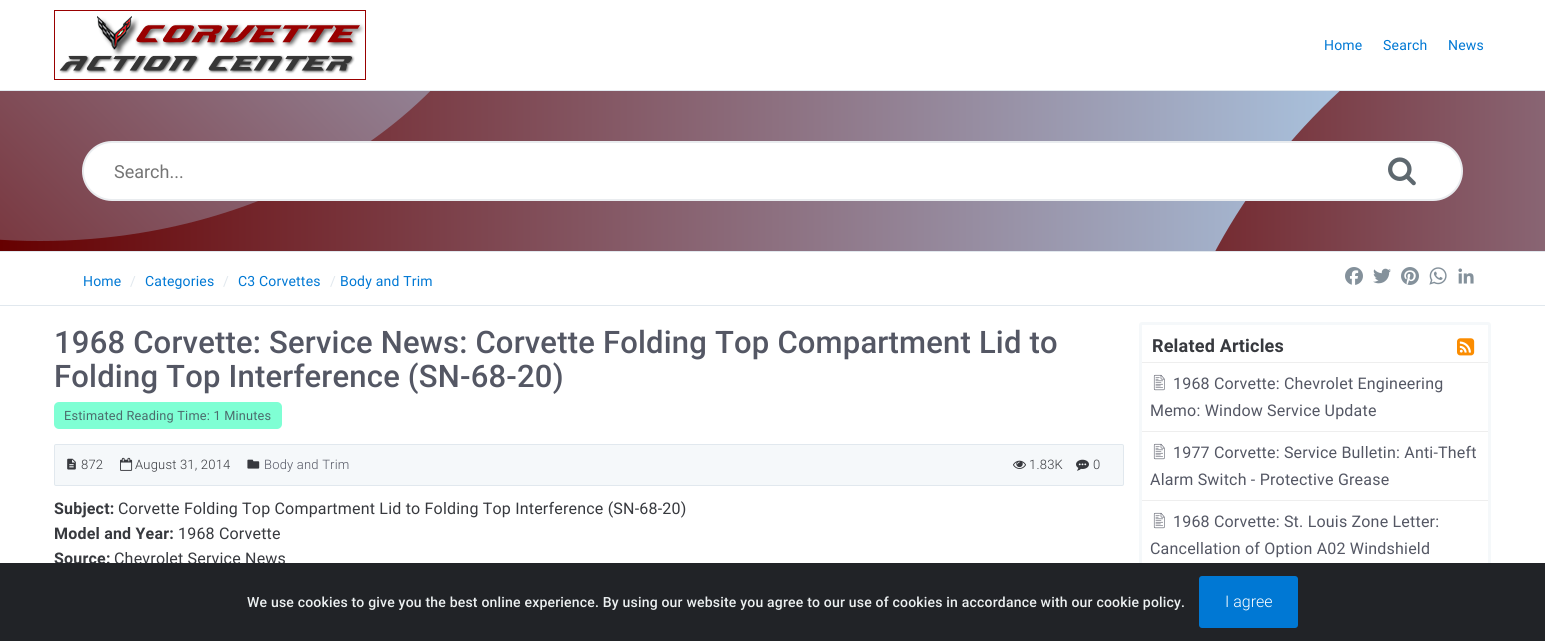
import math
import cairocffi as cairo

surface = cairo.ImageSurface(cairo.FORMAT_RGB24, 1545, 641)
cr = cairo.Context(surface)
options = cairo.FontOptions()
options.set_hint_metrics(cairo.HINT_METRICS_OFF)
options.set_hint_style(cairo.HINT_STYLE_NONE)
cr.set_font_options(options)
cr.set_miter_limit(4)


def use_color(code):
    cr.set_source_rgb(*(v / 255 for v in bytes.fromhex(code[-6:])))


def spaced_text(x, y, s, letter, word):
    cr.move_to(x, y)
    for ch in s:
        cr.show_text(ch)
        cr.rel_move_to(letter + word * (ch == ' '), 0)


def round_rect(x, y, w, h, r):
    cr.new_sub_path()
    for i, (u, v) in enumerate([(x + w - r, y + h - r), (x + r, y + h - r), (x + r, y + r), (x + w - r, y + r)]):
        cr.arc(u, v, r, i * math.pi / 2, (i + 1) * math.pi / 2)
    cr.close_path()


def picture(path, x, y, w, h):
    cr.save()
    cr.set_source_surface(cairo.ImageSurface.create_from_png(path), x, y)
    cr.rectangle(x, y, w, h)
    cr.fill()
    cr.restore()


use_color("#ffffff")
cr.paint()
picture("img1.png", 54, 10, 312, 70)
cr.select_font_face("Roboto")
cr.set_font_size(14)
use_color("#0078d4")
spaced_text(1324, 50, "Home", 0.2, 0)
spaced_text(1383, 50, "Search", 0.2, 0)
spaced_text(1448, 50, "News", 0.2, 0)
gradient = cairo.LinearGradient(0, 171, 1545, 171)
gradient.add_color_stop_rgba(0, 0.4, 0, 0, 1)
gradient.add_color_stop_rgba(1, 0.702, 0.875, 1, 1)
cr.set_source(gradient)
cr.rectangle(0, 91, 1340, 160)
cr.fill()
use_color("#e1e8ee")
cr.rectangle(0, 90, 1545, 1)
cr.fill()
cr.rectangle(0, 251, 1545, 1)
cr.fill()
cr.save()
cr.rectangle(0, 91, 1545, 160)
cr.clip()
gradient = cairo.LinearGradient(-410, 291, 490, -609)
gradient.add_color_stop_rgba(0, 0.4, 0, 0, 1)
gradient.add_color_stop_rgba(1, 0.702, 0.875, 1, 1)
cr.set_source(gradient)
cr.new_path()
cr.move_to(40, -559)
cr.curve_to(316, -559, 540, -380, 540, -159)
cr.curve_to(540, 62, 316, 241, 40, 241)
cr.curve_to(-236, 241, -460, 62, -460, -159)
cr.curve_to(-460, -380, -236, -559, 40, -559)
cr.close_path()
cr.fill()
gradient = cairo.LinearGradient(969, 391, 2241, 391)
gradient.add_color_stop_rgba(0, 0.4, 0, 0, 1)
gradient.add_color_stop_rgba(1, 0.702, 0.875, 1, 1)
cr.set_source(gradient)
cr.new_path()
cr.move_to(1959, 37)
cr.curve_to(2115, 194, 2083, 479, 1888, 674)
cr.curve_to(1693, 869, 1408, 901, 1251, 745)
cr.curve_to(1095, 588, 1127, 303, 1322, 108)
cr.curve_to(1517, -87, 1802, -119, 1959, 37)
cr.close_path()
cr.fill()
cr.restore()
use_color("#ffffff")
round_rect(83, 142, 1379, 58, 29)
cr.fill_preserve()
use_color("#e9ecef")
cr.stroke()
cr.set_font_size(18)
use_color("#757575")
cr.move_to(114, 178)
cr.show_text("Search...")
picture("img2.png", 1388, 157, 28, 29)
use_color("#e1e8ee")
cr.rectangle(0, 305, 1545, 1)
cr.fill()
cr.set_font_size(14)
use_color("#0078d4")
spaced_text(83, 286, "Home", 0.2, 0)
use_color("#e1e8ee")
spaced_text(130, 286, "/", 0.2, 0)
use_color("#0078d4")
spaced_text(145, 286, "Categories", 0.2, 0)
use_color("#e1e8ee")
spaced_text(223, 286, "/", 0.2, 0)
use_color("#0078d4")
spaced_text(238, 286, "C3 Corvettes", 0.2, 0)
use_color("#e1e8ee")
spaced_text(330, 286, "/", 0.2, 0)
use_color("#0078d4")
spaced_text(340, 286, "Body and Trim", 0.2, 0)
picture("img3.png", 1345, 267, 18, 18)
picture("img4.png", 1373, 268, 18, 16)
picture("img5.png", 1401, 267, 18, 18)
picture("img6.png", 1429, 267, 18, 18)
picture("img7.png", 1458, 268, 16, 16)
cr.select_font_face("Roboto Medium")
cr.set_font_size(31)
use_color("#545764")
spaced_text(54, 353, "1968 Corvette: Service News: Corvette Folding Top Compartment Lid to", 0.2, 0)
spaced_text(54, 387, "Folding Top Interference (SN-68-20)", 0.2, 0)
use_color("#7fffd4")
round_rect(54, 402, 228, 27, 5)
cr.fill()
cr.select_font_face("Roboto")
cr.set_font_size(12.75)
use_color("#4c6c6d")
spaced_text(64, 420, "Estimated Reading Time: 1 Minutes", 0.2, 0)
use_color("#f5f8fa")
round_rect(54.5, 444.5, 1069, 41, 1.5)
cr.fill_preserve()
use_color("#e1e8ee")
cr.set_line_width(1)
cr.stroke()
picture("img8.png", 67, 458, 9, 12)
cr.select_font_face("Roboto Light")
cr.set_font_size(13)
use_color("#37393e")
spaced_text(81, 469, "872", 0.2, 0)
picture("img9.png", 120, 457, 13, 14)
spaced_text(135, 469, "August 31, 2014", 0.2, 0)
picture("img10.png", 247, 459, 13, 10)
use_color("#545764")
spaced_text(264, 469, "Body and Trim", 0.2, 0)
picture("img11.png", 1013, 460, 13, 9)
use_color("#37393e")
spaced_text(1029, 469, "1.83K", 0.2, 0)
picture("img12.png", 1076, 459, 13, 12)
spaced_text(1093, 469, "0", 0.2, 0)
cr.select_font_face("Roboto", cairo.FONT_SLANT_NORMAL, cairo.FONT_WEIGHT_BOLD)
cr.set_font_size(16)
spaced_text(54, 514, "Subject:", 0.2, 0)
cr.select_font_face("Roboto")
spaced_text(118, 514, "Corvette Folding Top Compartment Lid to Folding Top Interference (SN-68-20)", 0.2, 0)
cr.select_font_face("Roboto", cairo.FONT_SLANT_NORMAL, cairo.FONT_WEIGHT_BOLD)
spaced_text(54, 539, "Model and Year:", 0.2, 0)
cr.select_font_face("Roboto")
spaced_text(178, 539, "1968 Corvette", 0.2, 0)
cr.select_font_face("Roboto", cairo.FONT_SLANT_NORMAL, cairo.FONT_WEIGHT_BOLD)
spaced_text(54, 564, "Source:", 0.2, 0)
cr.select_font_face("Roboto")
spaced_text(114, 564, "Chevrolet Service News", 0.2, 0)
round_rect(1140.5, 323.5, 349, 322, 1.5)
use_color("#f5f8fa")
cr.set_line_width(3)
cr.stroke()
use_color("#eeeeee")
cr.rectangle(1142, 362, 346, 1)
cr.fill()
cr.select_font_face("Roboto", cairo.FONT_SLANT_NORMAL, cairo.FONT_WEIGHT_BOLD)
cr.set_font_size(18)
use_color("#37393e")
spaced_text(1152, 352, "Related Articles", 0.2, 0)
picture("img13.png", 1457, 338, 18, 18)
use_color("#eeeeee")
cr.rectangle(1142, 431, 346, 1)
cr.fill()
picture("img14.png", 1153, 374, 12, 17)
cr.select_font_face("Roboto")
cr.set_font_size(16)
use_color("#545764")
spaced_text(1173, 389, "1968 Corvette: Chevrolet Engineering", 0.2, 0)
spaced_text(1150, 416, "Memo: Window Service Update", 0.2, 0)
use_color("#eeeeee")
cr.rectangle(1142, 500, 346, 1)
cr.fill()
picture("img14.png", 1153, 443, 12, 17)
use_color("#545764")
spaced_text(1173, 458, "1977 Corvette: Service Bulletin: Anti-Theft", 0.2, 0)
spaced_text(1150, 485, "Alarm Switch - Protective Grease", 0.2, 0)
picture("img14.png", 1153, 512, 12, 17)
spaced_text(1173, 527, "1968 Corvette: St. Louis Zone Letter:", 0.2, 0)
spaced_text(1150, 554, "Cancellation of Option A02 Windshield", 0.2, 0)
use_color("#212327")
cr.rectangle(0, 563, 1545, 78)
cr.fill()
cr.select_font_face("Roboto Medium")
cr.set_font_size(14)
use_color("#ecf0f1")
spaced_text(247, 607, "We use cookies to give you the best online experience. By using our website you agree to our use of cookies in accordance with our cookie policy.", 0.2, 0)
use_color("#0078d4")
round_rect(1199, 576, 99, 52, 3)
cr.fill()
cr.select_font_face("Roboto Light")
cr.set_font_size(16)
use_color("#ffffff")
cr.move_to(1225, 607)
cr.show_text("I agree")
surface.write_to_png("result.png")
